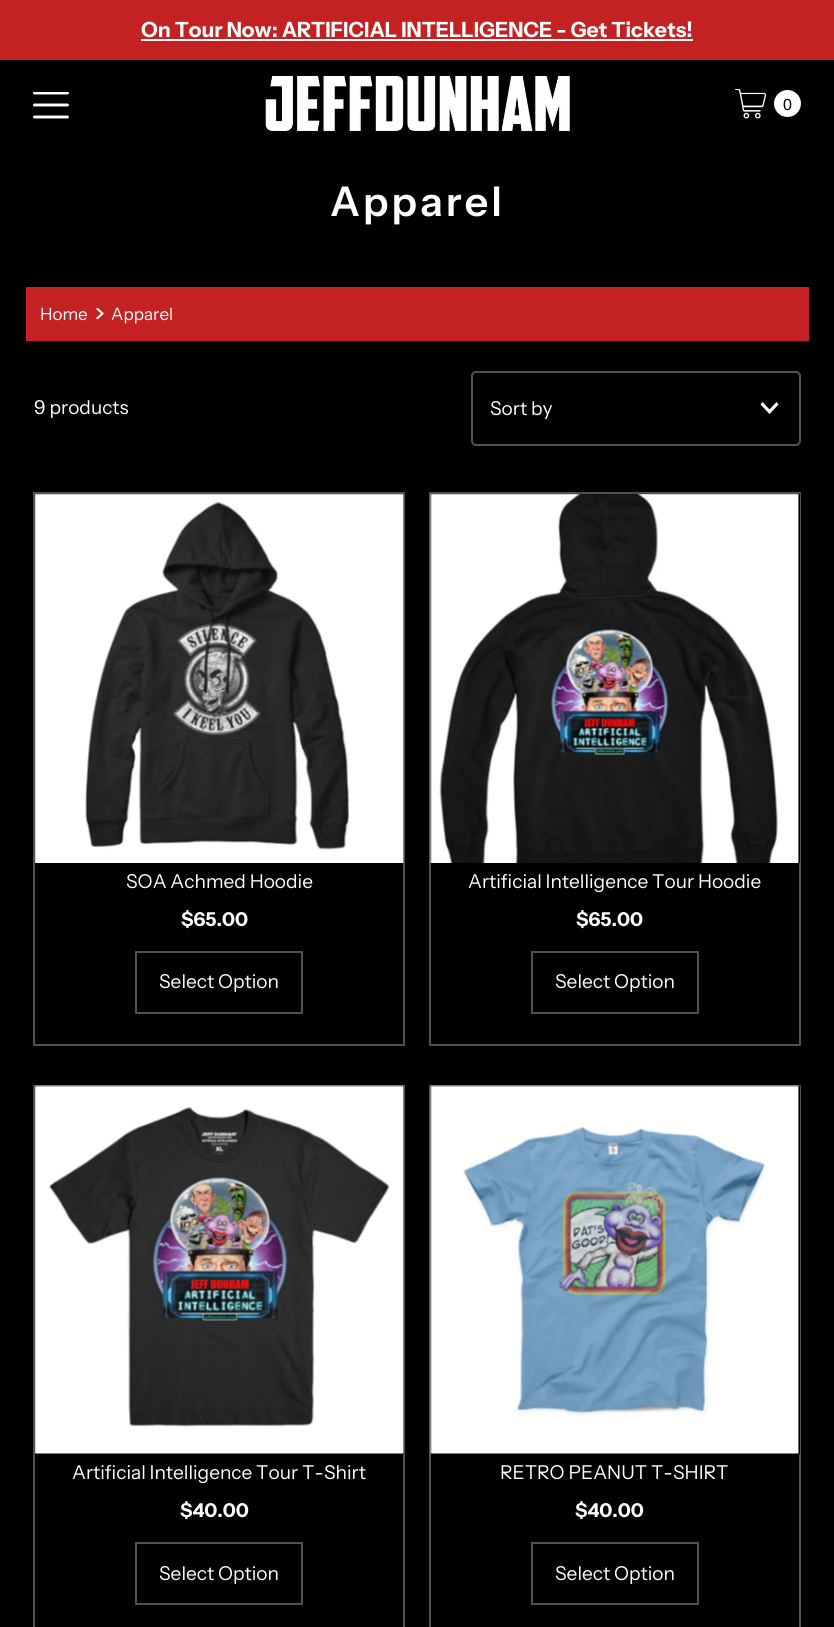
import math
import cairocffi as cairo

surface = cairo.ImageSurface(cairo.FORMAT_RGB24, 834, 1627)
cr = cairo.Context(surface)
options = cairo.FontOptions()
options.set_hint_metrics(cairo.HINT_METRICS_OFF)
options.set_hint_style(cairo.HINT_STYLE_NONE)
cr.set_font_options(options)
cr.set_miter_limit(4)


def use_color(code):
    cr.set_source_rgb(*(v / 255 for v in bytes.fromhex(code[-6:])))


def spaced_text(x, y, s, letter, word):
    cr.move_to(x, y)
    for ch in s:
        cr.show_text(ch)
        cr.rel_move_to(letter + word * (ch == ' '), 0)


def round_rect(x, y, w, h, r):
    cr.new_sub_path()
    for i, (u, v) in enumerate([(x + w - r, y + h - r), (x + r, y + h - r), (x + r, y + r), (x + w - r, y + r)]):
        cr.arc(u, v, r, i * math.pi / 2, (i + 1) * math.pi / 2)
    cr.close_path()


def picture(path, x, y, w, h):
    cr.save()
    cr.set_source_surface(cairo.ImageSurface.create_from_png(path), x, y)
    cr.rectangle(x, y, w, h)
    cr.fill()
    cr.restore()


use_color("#000000")
cr.paint()
use_color("#c42222")
cr.rectangle(0, 0, 834, 60)
cr.fill()
cr.select_font_face("Instrument Sans", cairo.FONT_SLANT_NORMAL, cairo.FONT_WEIGHT_BOLD)
cr.set_font_size(21)
use_color("#ffffff")
cr.move_to(141, 37)
cr.show_text("On Tour Now: ARTIFICIAL INTELLIGENCE - Get Tickets!")
cr.rectangle(141, 39, 552, 2)
cr.fill()
picture("img1.png", 33, 92, 36, 27)
picture("img2.png", 265, 75, 305, 57)
picture("img3.png", 735, 89, 32, 30)
cr.arc(787.5, 103.5, 13.5, 0, 2 * math.pi)
cr.fill()
cr.select_font_face("Liberation Sans")
cr.set_font_size(16)
use_color("#000000")
cr.move_to(783, 110)
cr.show_text("0")
cr.select_font_face("Instrument Sans SemiBold")
cr.set_font_size(41)
use_color("#ffffff")
spaced_text(330, 216, "Apparel", 3, 0)
use_color("#c42222")
cr.rectangle(26, 287, 783, 54)
cr.fill()
cr.select_font_face("Instrument Sans")
cr.set_font_size(17)
use_color("#ffffff")
cr.move_to(40, 320)
cr.show_text("Home")
picture("img4.png", 96, 308, 8, 12)
cr.move_to(111, 320)
cr.show_text("Apparel")
cr.set_font_size(19.1)
cr.move_to(34, 414)
cr.show_text("9 products")
round_rect(472, 372, 328, 73, 4)
use_color("#515151")
cr.stroke()
use_color("#ffffff")
cr.move_to(490, 415)
cr.show_text("Sort by")
cr.new_path()
cr.move_to(776.5, 402)
cr.line_to(769.5, 409.5)
cr.line_to(762.5, 402)
cr.line_to(760.5, 404.5)
cr.line_to(769.5, 414)
cr.line_to(778.5, 404.5)
cr.close_path()
cr.fill()
cr.rectangle(34, 493, 370, 552)
use_color("#515151")
cr.stroke()
use_color("#000000")
cr.rectangle(403, 494, 1, 369)
cr.fill()
picture("img5.png", 35, 494, 369, 369)
use_color("#ffffff")
cr.move_to(126, 888)
cr.show_text("SOA Achmed Hoodie")
cr.select_font_face("Instrument Sans", cairo.FONT_SLANT_NORMAL, cairo.FONT_WEIGHT_BOLD)
cr.move_to(181, 926)
cr.show_text("$65.00")
cr.rectangle(136, 952, 166, 61)
use_color("#515151")
cr.stroke()
cr.select_font_face("Instrument Sans")
use_color("#ffffff")
cr.move_to(159, 988)
cr.show_text("Select Option")
cr.rectangle(430, 493, 370, 552)
use_color("#515151")
cr.stroke()
use_color("#000000")
cr.rectangle(799, 494, 1, 369)
cr.fill()
picture("img6.png", 430, 494, 369, 369)
use_color("#ffffff")
cr.move_to(468, 888)
cr.show_text("Artificial Intelligence Tour Hoodie")
cr.select_font_face("Instrument Sans", cairo.FONT_SLANT_NORMAL, cairo.FONT_WEIGHT_BOLD)
cr.move_to(576, 926)
cr.show_text("$65.00")
cr.rectangle(532, 952, 166, 61)
use_color("#515151")
cr.stroke()
cr.select_font_face("Instrument Sans")
use_color("#ffffff")
cr.move_to(555, 988)
cr.show_text("Select Option")
cr.rectangle(34, 1086, 370, 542)
use_color("#515151")
cr.stroke()
use_color("#000000")
cr.rectangle(35, 1086, 369, 368)
cr.fill()
picture("img7.png", 35, 1085, 369, 369)
use_color("#ffffff")
cr.move_to(72, 1479)
cr.show_text("Artificial Intelligence Tour T-Shirt")
cr.select_font_face("Instrument Sans", cairo.FONT_SLANT_NORMAL, cairo.FONT_WEIGHT_BOLD)
cr.move_to(180, 1517)
cr.show_text("$40.00")
cr.rectangle(136, 1543, 166, 61)
use_color("#515151")
cr.stroke()
cr.select_font_face("Instrument Sans")
use_color("#ffffff")
cr.move_to(159, 1580)
cr.show_text("Select Option")
cr.rectangle(430, 1086, 370, 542)
use_color("#515151")
cr.stroke()
use_color("#000000")
cr.rectangle(431, 1086, 369, 368)
cr.fill()
picture("img8.png", 430, 1085, 369, 369)
use_color("#ffffff")
cr.move_to(500, 1479)
cr.show_text("RETRO PEANUT T-SHIRT")
cr.select_font_face("Instrument Sans", cairo.FONT_SLANT_NORMAL, cairo.FONT_WEIGHT_BOLD)
cr.move_to(575, 1517)
cr.show_text("$40.00")
cr.rectangle(532, 1543, 166, 61)
use_color("#515151")
cr.stroke()
cr.select_font_face("Instrument Sans")
use_color("#ffffff")
cr.move_to(555, 1580)
cr.show_text("Select Option")
surface.write_to_png("result.png")
